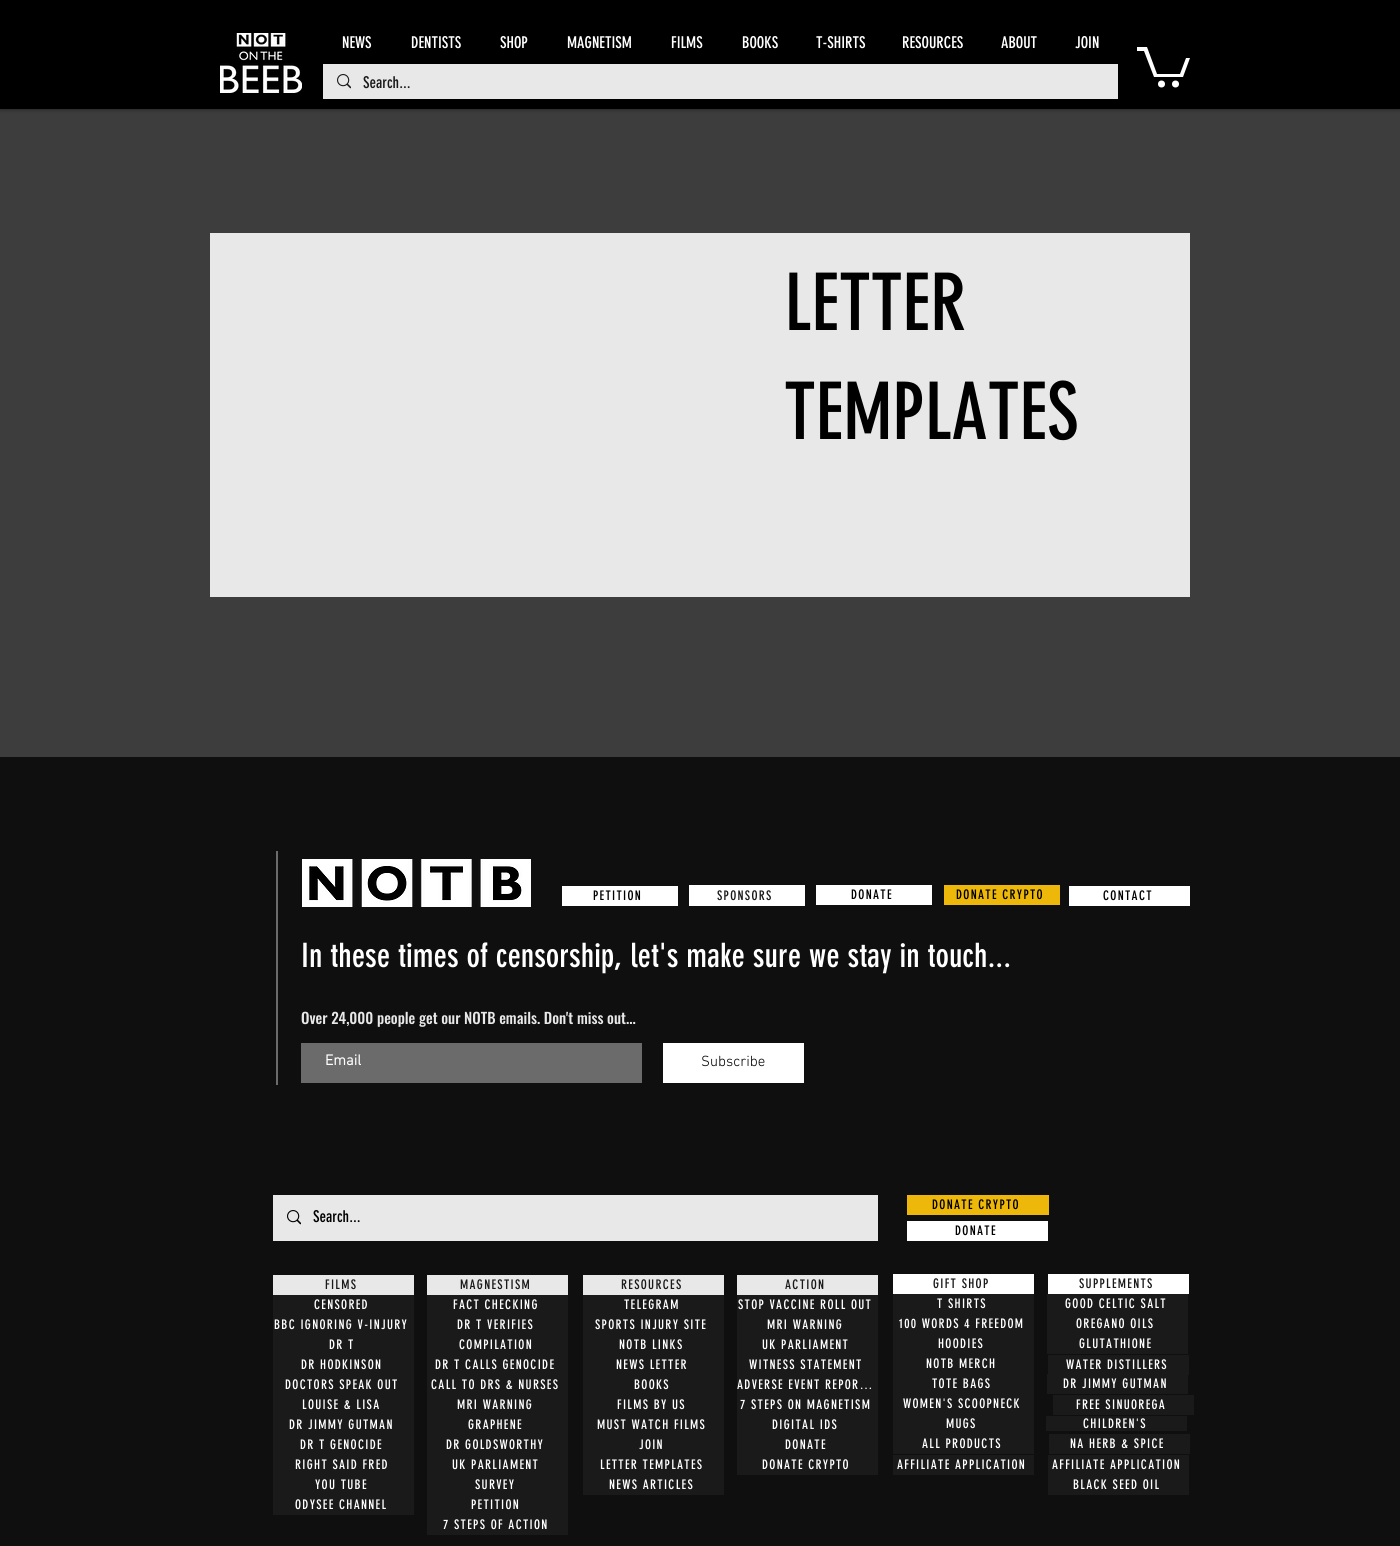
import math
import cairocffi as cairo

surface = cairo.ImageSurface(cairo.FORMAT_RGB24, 1400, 1546)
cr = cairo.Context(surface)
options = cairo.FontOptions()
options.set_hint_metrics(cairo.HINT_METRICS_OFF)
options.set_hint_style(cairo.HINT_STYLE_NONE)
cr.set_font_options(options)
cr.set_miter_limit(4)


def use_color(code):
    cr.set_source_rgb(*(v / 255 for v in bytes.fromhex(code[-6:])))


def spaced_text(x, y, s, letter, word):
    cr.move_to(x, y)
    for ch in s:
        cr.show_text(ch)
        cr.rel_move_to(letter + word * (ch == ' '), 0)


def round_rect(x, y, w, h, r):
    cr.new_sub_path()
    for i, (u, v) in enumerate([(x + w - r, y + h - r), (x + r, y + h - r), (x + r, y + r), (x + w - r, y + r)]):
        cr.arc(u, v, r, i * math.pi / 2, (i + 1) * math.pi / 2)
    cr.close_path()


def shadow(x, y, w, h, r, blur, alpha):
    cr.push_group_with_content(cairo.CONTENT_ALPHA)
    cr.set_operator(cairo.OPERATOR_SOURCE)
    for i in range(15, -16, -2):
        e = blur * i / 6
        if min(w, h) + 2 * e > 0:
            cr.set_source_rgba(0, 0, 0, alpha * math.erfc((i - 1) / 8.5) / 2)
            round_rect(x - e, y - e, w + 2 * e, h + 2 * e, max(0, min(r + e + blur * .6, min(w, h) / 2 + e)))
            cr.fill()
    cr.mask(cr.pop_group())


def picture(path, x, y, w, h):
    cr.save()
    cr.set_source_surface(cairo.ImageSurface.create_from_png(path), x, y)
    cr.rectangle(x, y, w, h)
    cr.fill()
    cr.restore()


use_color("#3d3d3d")
cr.paint()
use_color("#000000")
shadow(0, 0, 1400, 109, 0, 2.5, 0.5)
use_color("#000000")
cr.rectangle(0, 0, 1400, 109)
cr.fill()
picture("img1.png", 220, 33, 82, 60)
cr.select_font_face("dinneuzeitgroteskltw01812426")
cr.set_font_size(16)
use_color("#ffffff")
cr.move_to(342, 48)
cr.show_text("NEWS")
cr.move_to(411, 48)
cr.show_text("DENTISTS")
cr.move_to(500, 48)
cr.show_text("SHOP")
cr.move_to(567, 48)
cr.show_text("MAGNETISM")
cr.move_to(671, 48)
cr.show_text("FILMS")
cr.move_to(742, 48)
cr.show_text("BOOKS")
cr.move_to(816, 48)
cr.show_text("T-SHIRTS")
cr.move_to(902, 48)
cr.show_text("RESOURCES")
cr.move_to(1001, 48)
cr.show_text("ABOUT")
cr.move_to(1075, 48)
cr.show_text("JOIN")
use_color("#e8e8e8")
cr.rectangle(323, 64, 795, 35)
cr.fill()
picture("img2.png", 337, 74, 14, 15)
use_color("#1a1a1a")
cr.move_to(363, 88)
cr.show_text("Search...")
use_color("#ffffff")
cr.new_path()
cr.move_to(1190, 58)
cr.line_to(1183, 77)
cr.line_to(1154, 77)
cr.line_to(1144, 51)
cr.line_to(1137, 51)
cr.line_to(1137, 47)
cr.line_to(1147, 47)
cr.line_to(1157, 74)
cr.line_to(1180, 74)
cr.line_to(1186, 58)
cr.fill()
cr.arc(1175.5, 84, 3.5, 0, 2 * math.pi)
cr.fill()
cr.arc(1161.5, 84, 3.5, 0, 2 * math.pi)
cr.fill()
use_color("#e8e8e8")
cr.rectangle(210, 233, 980, 364)
cr.fill()
cr.set_font_size(78)
use_color("#000000")
cr.move_to(784, 330)
cr.show_text("LETTER")
cr.move_to(784, 439)
cr.show_text("TEMPLATES")
use_color("#0f0f0f")
cr.rectangle(0, 757, 1400, 789)
cr.fill()
use_color("#6b6b6b")
cr.rectangle(276, 851, 2, 234)
cr.fill()
picture("img3.png", 302, 859, 229, 48)
use_color("#ffffff")
cr.rectangle(562, 886, 116, 20)
cr.fill()
cr.set_font_size(13)
use_color("#000000")
spaced_text(593, 900, "PETITION", 1.3, 0)
use_color("#ffffff")
cr.rectangle(689, 885, 116, 21)
cr.fill()
use_color("#1a1a1a")
spaced_text(717, 900, "SPONSORS", 1.3, 0)
use_color("#ffffff")
cr.rectangle(816, 885, 116, 20)
cr.fill()
use_color("#000000")
spaced_text(851, 899, "DONATE", 1.3, 0)
use_color("#edb809")
cr.rectangle(944, 885, 116, 20)
cr.fill()
use_color("#000000")
spaced_text(956, 899, "DONATE CRYPTO", 1.3, 0)
use_color("#ffffff")
cr.rectangle(1069, 886, 121, 20)
cr.fill()
use_color("#000000")
spaced_text(1103, 900, "CONTACT", 1.3, 0)
cr.set_font_size(33)
use_color("#ffffff")
cr.move_to(301, 967)
cr.show_text("In these times of censorship, let's make sure we stay in touch...")
cr.select_font_face("Oswald Medium")
cr.set_font_size(15)
use_color("#e8e8e8")
cr.move_to(301, 1024)
cr.show_text("Over 24,000 people get our NOTB emails. Don't miss out...")
use_color("#6b6b6b")
cr.rectangle(301, 1043, 341, 40)
cr.fill()
cr.select_font_face("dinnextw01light", cairo.FONT_SLANT_NORMAL, cairo.FONT_WEIGHT_BOLD)
use_color("#ffffff")
cr.move_to(325, 1065)
cr.show_text("Email")
cr.rectangle(663, 1043, 141, 40)
cr.fill()
cr.select_font_face("dinnextw01light Light")
use_color("#000000")
cr.move_to(701, 1066)
cr.show_text("Subscribe")
use_color("#edb809")
cr.rectangle(907, 1195, 142, 20)
cr.fill()
cr.select_font_face("dinneuzeitgroteskltw01812426")
cr.set_font_size(13)
use_color("#000000")
spaced_text(932, 1209, "DONATE CRYPTO", 1.3, 0)
use_color("#e8e8e8")
cr.rectangle(273, 1195, 605, 46)
cr.fill()
picture("img4.png", 287, 1210, 14, 15)
cr.set_font_size(16)
use_color("#000000")
cr.move_to(313, 1222)
cr.show_text("Search...")
use_color("#ffffff")
cr.rectangle(907, 1221, 141, 20)
cr.fill()
cr.set_font_size(13)
use_color("#000000")
spaced_text(955, 1235, "DONATE", 1.3, 0)
use_color("#e8e8e8")
cr.rectangle(273, 1275, 141, 20)
cr.fill()
use_color("#1a1a1a")
spaced_text(325, 1289, "FILMS", 1.3, 0)
cr.rectangle(273, 1295, 141, 220)
cr.fill()
use_color("#ffffff")
spaced_text(314, 1309, "CENSORED", 1.3, 0)
spaced_text(274, 1329, "BBC IGNORING V-INJURY", 1.3, 0)
spaced_text(329, 1349, "DR T", 1.3, 0)
spaced_text(301, 1369, "DR HODKINSON", 1.3, 0)
spaced_text(285, 1389, "DOCTORS SPEAK OUT", 1.3, 0)
spaced_text(302, 1409, "LOUISE & LISA", 1.3, 0)
spaced_text(289, 1429, "DR JIMMY GUTMAN", 1.3, 0)
spaced_text(300, 1449, "DR T GENOCIDE", 1.3, 0)
spaced_text(295, 1469, "RIGHT SAID FRED", 1.3, 0)
spaced_text(315, 1489, "YOU TUBE", 1.3, 0)
spaced_text(295, 1509, "ODYSEE CHANNEL", 1.3, 0)
use_color("#e8e8e8")
cr.rectangle(427, 1275, 141, 20)
cr.fill()
use_color("#1a1a1a")
spaced_text(460, 1289, "MAGNESTISM", 1.3, 0)
cr.rectangle(427, 1295, 141, 240)
cr.fill()
use_color("#ffffff")
spaced_text(453, 1309, "FACT CHECKING", 1.3, 0)
spaced_text(457, 1329, "DR T VERIFIES", 1.3, 0)
spaced_text(459, 1349, "COMPILATION", 1.3, 0)
spaced_text(435, 1369, "DR T CALLS GENOCIDE", 1.3, 0)
spaced_text(431, 1389, "CALL TO DRS & NURSES", 1.3, 0)
spaced_text(457, 1409, "MRI WARNING", 1.3, 0)
spaced_text(468, 1429, "GRAPHENE", 1.3, 0)
spaced_text(446, 1449, "DR GOLDSWORTHY", 1.3, 0)
spaced_text(452, 1469, "UK PARLIAMENT", 1.3, 0)
spaced_text(475, 1489, "SURVEY", 1.3, 0)
spaced_text(471, 1509, "PETITION", 1.3, 0)
spaced_text(443, 1529, "7 STEPS OF ACTION", 1.3, 0)
use_color("#e8e8e8")
cr.rectangle(583, 1275, 141, 20)
cr.fill()
use_color("#1a1a1a")
spaced_text(621, 1289, "RESOURCES", 1.3, 0)
cr.rectangle(583, 1295, 141, 200)
cr.fill()
use_color("#ffffff")
spaced_text(624, 1309, "TELEGRAM", 1.3, 0)
spaced_text(595, 1329, "SPORTS INJURY SITE", 1.3, 0)
spaced_text(619, 1349, "NOTB LINKS", 1.3, 0)
spaced_text(616, 1369, "NEWS LETTER", 1.3, 0)
spaced_text(634, 1389, "BOOKS", 1.3, 0)
spaced_text(617, 1409, "FILMS BY US", 1.3, 0)
spaced_text(597, 1429, "MUST WATCH FILMS", 1.3, 0)
spaced_text(639, 1449, "JOIN", 1.3, 0)
spaced_text(600, 1469, "LETTER TEMPLATES", 1.3, 0)
spaced_text(609, 1489, "NEWS ARTICLES", 1.3, 0)
use_color("#e8e8e8")
cr.rectangle(737, 1275, 141, 20)
cr.fill()
use_color("#1a1a1a")
spaced_text(785, 1289, "ACTION", 1.3, 0)
cr.rectangle(737, 1295, 141, 180)
cr.fill()
use_color("#ffffff")
spaced_text(738, 1309, "STOP VACCINE ROLL OUT", 1.3, 0)
spaced_text(767, 1329, "MRI WARNING", 1.3, 0)
spaced_text(762, 1349, "UK PARLIAMENT", 1.3, 0)
spaced_text(749, 1369, "WITNESS STATEMENT", 1.3, 0)
spaced_text(737, 1389, "ADVERSE EVENT REPOR…", 1.3, 0)
spaced_text(740, 1409, "7 STEPS ON MAGNETISM", 1.3, 0)
cr.rectangle(893, 1274, 141, 20)
cr.fill()
use_color("#1a1a1a")
spaced_text(933, 1288, "GIFT SHOP", 1.3, 0)
cr.rectangle(893, 1294, 141, 160)
cr.fill()
use_color("#ffffff")
spaced_text(937, 1308, "T SHIRTS", 1.3, 0)
spaced_text(899, 1328, "100 WORDS 4 FREEDOM", 1.3, 0)
spaced_text(938, 1348, "HOODIES", 1.3, 0)
spaced_text(926, 1368, "NOTB MERCH", 1.3, 0)
spaced_text(932, 1388, "TOTE BAGS", 1.3, 0)
spaced_text(903, 1408, "WOMEN'S SCOOPNECK", 1.3, 0)
spaced_text(946, 1428, "MUGS", 1.3, 0)
spaced_text(922, 1448, "ALL PRODUCTS", 1.3, 0)
cr.rectangle(1048, 1274, 141, 20)
cr.fill()
use_color("#1a1a1a")
spaced_text(1079, 1288, "SUPPLEMENTS", 1.3, 0)
cr.rectangle(1047, 1294, 141, 60)
cr.fill()
use_color("#ffffff")
spaced_text(1065, 1308, "GOOD CELTIC SALT", 1.3, 0)
spaced_text(1076, 1328, "OREGANO OILS", 1.3, 0)
spaced_text(1079, 1348, "GLUTATHIONE", 1.3, 0)
use_color("#1a1a1a")
cr.rectangle(1048, 1355, 141, 20)
cr.fill()
use_color("#ffffff")
spaced_text(1066, 1369, "WATER DISTILLERS", 1.3, 0)
use_color("#1a1a1a")
cr.rectangle(1047, 1374, 141, 20)
cr.fill()
use_color("#ffffff")
spaced_text(1063, 1388, "DR JIMMY GUTMAN", 1.3, 0)
use_color("#1a1a1a")
cr.rectangle(1048, 1455, 141, 40)
cr.fill()
use_color("#ffffff")
spaced_text(1073, 1489, "BLACK SEED OIL", 1.3, 0)
use_color("#1a1a1a")
cr.rectangle(1053, 1395, 141, 20)
cr.fill()
use_color("#ffffff")
spaced_text(1076, 1409, "FREE SINUOREGA", 1.3, 0)
spaced_text(772, 1429, "DIGITAL IDS", 1.3, 0)
use_color("#1a1a1a")
cr.rectangle(1046, 1416, 141, 15)
cr.fill()
use_color("#ffffff")
spaced_text(1083, 1428, "CHILDREN'S", 1.3, 0)
spaced_text(785, 1449, "DONATE", 1.3, 0)
use_color("#1a1a1a")
cr.rectangle(1049, 1434, 141, 20)
cr.fill()
use_color("#ffffff")
spaced_text(1070, 1448, "NA HERB & SPICE", 1.3, 0)
spaced_text(762, 1469, "DONATE CRYPTO", 1.3, 0)
use_color("#1a1a1a")
cr.rectangle(893, 1455, 141, 20)
cr.fill()
use_color("#ffffff")
spaced_text(897, 1469, "AFFILIATE APPLICATION", 1.3, 0)
spaced_text(1052, 1469, "AFFILIATE APPLICATION", 1.3, 0)
surface.write_to_png("result.png")
